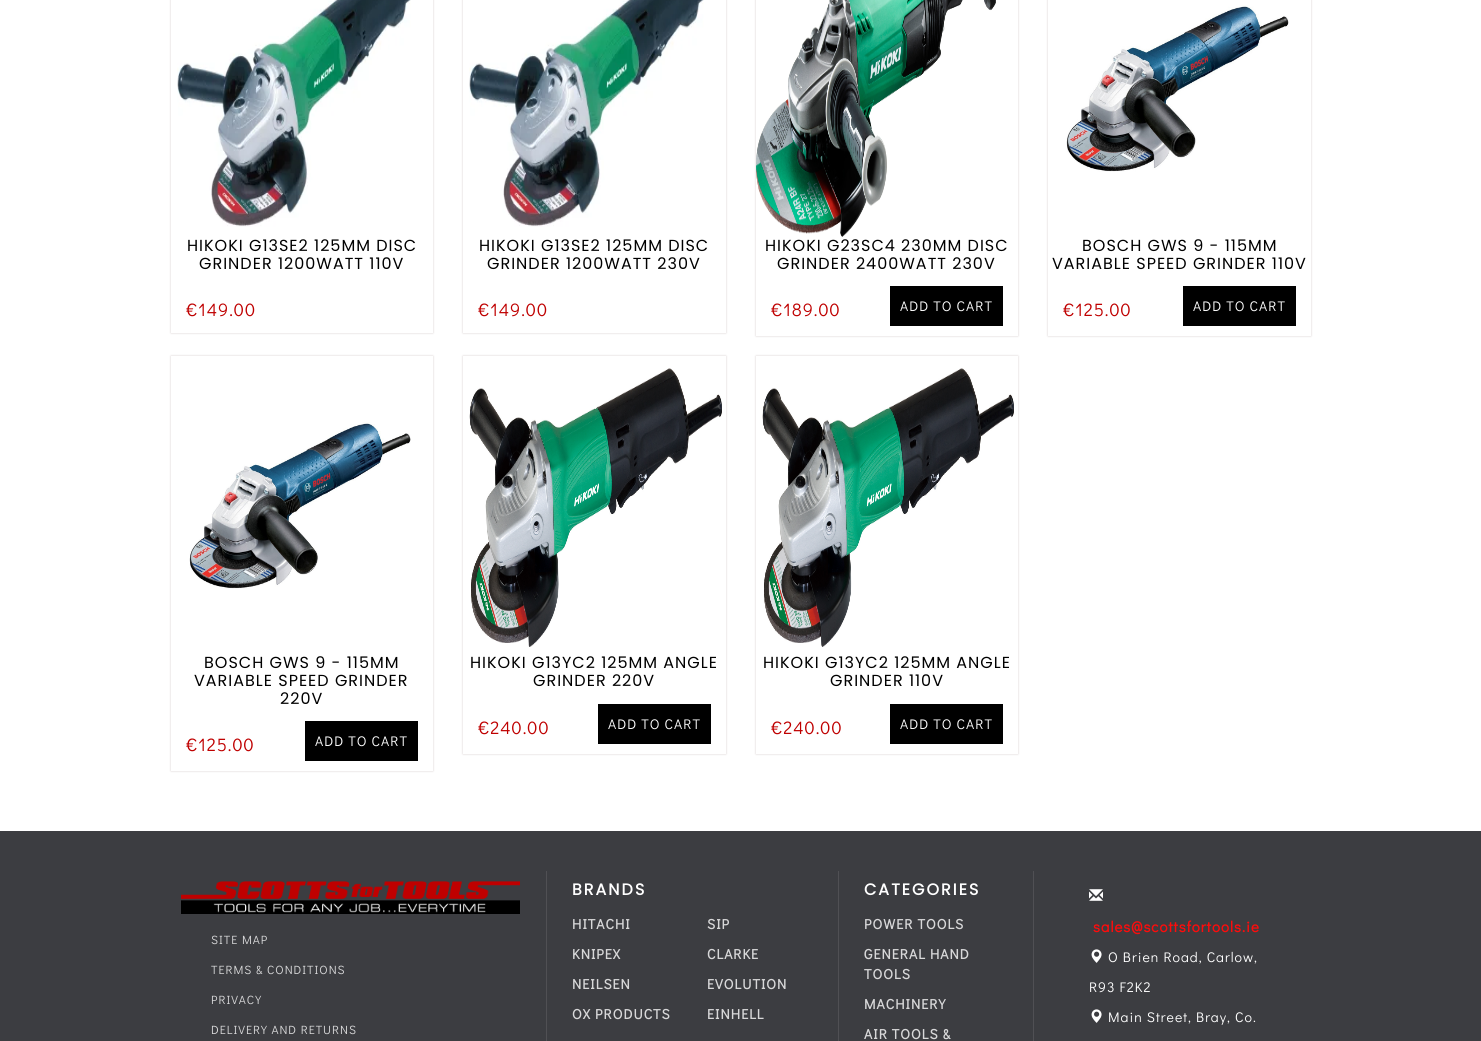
import math
import cairocffi as cairo

surface = cairo.ImageSurface(cairo.FORMAT_RGB24, 1481, 1041)
cr = cairo.Context(surface)
options = cairo.FontOptions()
options.set_hint_metrics(cairo.HINT_METRICS_OFF)
options.set_hint_style(cairo.HINT_STYLE_NONE)
cr.set_font_options(options)
cr.set_miter_limit(4)


def use_color(code):
    cr.set_source_rgb(*(v / 255 for v in bytes.fromhex(code[-6:])))


def spaced_text(x, y, s, letter, word):
    cr.move_to(x, y)
    for ch in s:
        cr.show_text(ch)
        cr.rel_move_to(letter + word * (ch == ' '), 0)


def round_rect(x, y, w, h, r):
    cr.new_sub_path()
    for i, (u, v) in enumerate([(x + w - r, y + h - r), (x + r, y + h - r), (x + r, y + r), (x + w - r, y + r)]):
        cr.arc(u, v, r, i * math.pi / 2, (i + 1) * math.pi / 2)
    cr.close_path()


def shadow(x, y, w, h, r, blur, alpha):
    cr.push_group_with_content(cairo.CONTENT_ALPHA)
    cr.set_operator(cairo.OPERATOR_SOURCE)
    for i in range(15, -16, -2):
        e = blur * i / 6
        if min(w, h) + 2 * e > 0:
            cr.set_source_rgba(0, 0, 0, alpha * math.erfc((i - 1) / 8.5) / 2)
            round_rect(x - e, y - e, w + 2 * e, h + 2 * e, max(0, min(r + e + blur * .6, min(w, h) / 2 + e)))
            cr.fill()
    cr.mask(cr.pop_group())


def picture(path, x, y, w, h):
    cr.save()
    cr.set_source_surface(cairo.ImageSurface.create_from_png(path), x, y)
    cr.rectangle(x, y, w, h)
    cr.fill()
    cr.restore()


use_color("#ffffff")
cr.paint()
cr.save()
cr.set_fill_rule(cairo.FILL_RULE_EVEN_ODD)
cr.new_path()
cr.move_to(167, 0)
cr.line_to(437, 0)
cr.line_to(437, 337)
cr.line_to(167, 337)
cr.close_path()
cr.move_to(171, -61)
cr.line_to(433, -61)
cr.line_to(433, 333)
cr.line_to(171, 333)
cr.close_path()
cr.clip()
use_color("#d6cece")
shadow(171, -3, 262, 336, 0, 1, 1)
cr.restore()
picture("img1.png", 177, 0, 234, 227)
cr.select_font_face("Poppins")
cr.set_font_size(16)
use_color("#000000")
spaced_text(187, 251, "HIKOKI G13SE2 125MM DISC", 1, 0)
spaced_text(199, 269, "GRINDER 1200WATT 110V", 1, 0)
cr.select_font_face("Didact Gothic")
cr.set_font_size(18)
use_color("#bf0000")
spaced_text(186, 316, "€149.00", 1, 0)
cr.save()
cr.set_fill_rule(cairo.FILL_RULE_EVEN_ODD)
cr.new_path()
cr.move_to(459, 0)
cr.line_to(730, 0)
cr.line_to(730, 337)
cr.line_to(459, 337)
cr.close_path()
cr.move_to(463, -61)
cr.line_to(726, -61)
cr.line_to(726, 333)
cr.line_to(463, 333)
cr.close_path()
cr.clip()
use_color("#d6cece")
shadow(463, -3, 263, 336, 0, 1, 1)
cr.restore()
picture("img2.png", 469, 0, 235, 227)
cr.select_font_face("Poppins")
cr.set_font_size(16)
use_color("#000000")
spaced_text(479, 251, "HIKOKI G13SE2 125MM DISC", 1, 0)
spaced_text(487, 269, "GRINDER 1200WATT 230V", 1, 0)
cr.select_font_face("Didact Gothic")
cr.set_font_size(18)
use_color("#bf0000")
spaced_text(478, 316, "€149.00", 1, 0)
cr.save()
cr.set_fill_rule(cairo.FILL_RULE_EVEN_ODD)
cr.new_path()
cr.move_to(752, 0)
cr.line_to(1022, 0)
cr.line_to(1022, 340)
cr.line_to(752, 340)
cr.close_path()
cr.move_to(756, -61)
cr.line_to(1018, -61)
cr.line_to(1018, 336)
cr.line_to(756, 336)
cr.close_path()
cr.clip()
use_color("#d6cece")
shadow(756, -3, 262, 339, 0, 1, 1)
cr.restore()
picture("img3.png", 756, 0, 240, 237)
cr.select_font_face("Poppins")
cr.set_font_size(16)
use_color("#000000")
spaced_text(765, 251, "HIKOKI G23SC4 230MM DISC", 1, 0)
spaced_text(777, 269, "GRINDER 2400WATT 230V", 1, 0)
cr.select_font_face("Didact Gothic")
cr.set_font_size(18)
use_color("#bf0000")
spaced_text(771, 316, "€189.00", 1, 0)
use_color("#000000")
cr.rectangle(890, 286, 113, 40)
cr.fill()
cr.set_font_size(14)
use_color("#ffffff")
spaced_text(900, 311, "ADD TO CART", 1, 0)
cr.save()
cr.set_fill_rule(cairo.FILL_RULE_EVEN_ODD)
cr.new_path()
cr.move_to(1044, 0)
cr.line_to(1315, 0)
cr.line_to(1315, 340)
cr.line_to(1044, 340)
cr.close_path()
cr.move_to(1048, -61)
cr.line_to(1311, -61)
cr.line_to(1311, 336)
cr.line_to(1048, 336)
cr.close_path()
cr.clip()
use_color("#d6cece")
shadow(1048, -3, 263, 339, 0, 1, 1)
cr.restore()
picture("img4.png", 1066, 5, 223, 167)
cr.select_font_face("Poppins")
cr.set_font_size(16)
use_color("#000000")
spaced_text(1082, 251, "BOSCH GWS 9 - 115MM", 1, 0)
spaced_text(1052, 269, "VARIABLE SPEED GRINDER 110V", 1, 0)
cr.select_font_face("Didact Gothic")
cr.set_font_size(18)
use_color("#bf0000")
spaced_text(1063, 316, "€125.00", 1, 0)
use_color("#000000")
cr.rectangle(1183, 286, 113, 40)
cr.fill()
cr.set_font_size(14)
use_color("#ffffff")
spaced_text(1193, 311, "ADD TO CART", 1, 0)
cr.save()
cr.set_fill_rule(cairo.FILL_RULE_EVEN_ODD)
cr.new_path()
cr.move_to(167, 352)
cr.line_to(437, 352)
cr.line_to(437, 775)
cr.line_to(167, 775)
cr.close_path()
cr.move_to(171, 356)
cr.line_to(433, 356)
cr.line_to(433, 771)
cr.line_to(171, 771)
cr.close_path()
cr.clip()
use_color("#d6cece")
shadow(171, 356, 262, 415, 0, 1, 1)
cr.restore()
picture("img5.png", 189, 422, 222, 167)
cr.select_font_face("Poppins")
cr.set_font_size(16)
use_color("#000000")
spaced_text(204, 668, "BOSCH GWS 9 - 115MM", 1, 0)
spaced_text(194, 686, "VARIABLE SPEED GRINDER", 1, 0)
spaced_text(280, 704, "220V", 1, 0)
cr.select_font_face("Didact Gothic")
cr.set_font_size(18)
use_color("#bf0000")
spaced_text(186, 751, "€125.00", 1, 0)
use_color("#000000")
cr.rectangle(305, 721, 113, 40)
cr.fill()
cr.set_font_size(14)
use_color("#ffffff")
spaced_text(315, 746, "ADD TO CART", 1, 0)
cr.save()
cr.set_fill_rule(cairo.FILL_RULE_EVEN_ODD)
cr.new_path()
cr.move_to(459, 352)
cr.line_to(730, 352)
cr.line_to(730, 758)
cr.line_to(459, 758)
cr.close_path()
cr.move_to(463, 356)
cr.line_to(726, 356)
cr.line_to(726, 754)
cr.line_to(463, 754)
cr.close_path()
cr.clip()
use_color("#d6cece")
shadow(463, 356, 263, 398, 0, 1, 1)
cr.restore()
picture("img6.png", 469, 368, 253, 279)
cr.select_font_face("Poppins")
cr.set_font_size(16)
use_color("#000000")
spaced_text(470, 668, "HIKOKI G13YC2 125MM ANGLE", 1, 0)
spaced_text(533, 686, "GRINDER 220V", 1, 0)
cr.select_font_face("Didact Gothic")
cr.set_font_size(18)
use_color("#bf0000")
spaced_text(478, 734, "€240.00", 1, 0)
use_color("#000000")
cr.rectangle(598, 704, 113, 40)
cr.fill()
cr.set_font_size(14)
use_color("#ffffff")
spaced_text(608, 729, "ADD TO CART", 1, 0)
cr.save()
cr.set_fill_rule(cairo.FILL_RULE_EVEN_ODD)
cr.new_path()
cr.move_to(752, 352)
cr.line_to(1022, 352)
cr.line_to(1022, 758)
cr.line_to(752, 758)
cr.close_path()
cr.move_to(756, 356)
cr.line_to(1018, 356)
cr.line_to(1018, 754)
cr.line_to(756, 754)
cr.close_path()
cr.clip()
use_color("#d6cece")
shadow(756, 356, 262, 398, 0, 1, 1)
cr.restore()
picture("img7.png", 762, 368, 252, 279)
cr.select_font_face("Poppins")
cr.set_font_size(16)
use_color("#000000")
spaced_text(763, 668, "HIKOKI G13YC2 125MM ANGLE", 1, 0)
spaced_text(830, 686, "GRINDER 110V", 1, 0)
cr.select_font_face("Didact Gothic")
cr.set_font_size(18)
use_color("#bf0000")
spaced_text(771, 734, "€240.00", 1, 0)
use_color("#000000")
cr.rectangle(890, 704, 113, 40)
cr.fill()
cr.set_font_size(14)
use_color("#ffffff")
spaced_text(900, 729, "ADD TO CART", 1, 0)
use_color("#3c3d41")
cr.rectangle(0, 831, 1481, 210)
cr.fill()
picture("img8.png", 181, 881, 339, 33)
cr.set_font_size(12)
use_color("#d8d8d9")
spaced_text(211, 944, "SITE MAP", 1, 0)
spaced_text(211, 974, "TERMS & CONDITIONS", 1, 0)
spaced_text(211, 1004, "PRIVACY", 1, 0)
spaced_text(211, 1034, "DELIVERY AND RETURNS", 1, 0)
use_color("#505054")
cr.rectangle(546, 871, 1, 170)
cr.fill()
cr.select_font_face("Poppins", cairo.FONT_SLANT_NORMAL, cairo.FONT_WEIGHT_BOLD)
cr.set_font_size(16)
use_color("#ffffff")
spaced_text(572, 895, "BRANDS", 2, 0)
cr.select_font_face("Didact Gothic", cairo.FONT_SLANT_NORMAL, cairo.FONT_WEIGHT_BOLD)
cr.set_font_size(14)
use_color("#d8d8d9")
spaced_text(572, 929, "HITACHI", 1, 0)
spaced_text(707, 929, "SIP", 1, 0)
spaced_text(572, 959, "KNIPEX", 1, 0)
spaced_text(707, 959, "CLARKE", 1, 0)
spaced_text(572, 989, "NEILSEN", 1, 0)
spaced_text(707, 989, "EVOLUTION", 1, 0)
spaced_text(572, 1019, "OX PRODUCTS", 1, 0)
spaced_text(707, 1019, "EINHELL", 1, 0)
use_color("#505054")
cr.rectangle(838, 871, 1, 170)
cr.fill()
cr.select_font_face("Poppins", cairo.FONT_SLANT_NORMAL, cairo.FONT_WEIGHT_BOLD)
cr.set_font_size(16)
use_color("#ffffff")
spaced_text(864, 895, "CATEGORIES", 2, 0)
cr.select_font_face("Didact Gothic", cairo.FONT_SLANT_NORMAL, cairo.FONT_WEIGHT_BOLD)
cr.set_font_size(14)
use_color("#d8d8d9")
spaced_text(864, 929, "POWER TOOLS", 1, 0)
spaced_text(864, 959, "GENERAL HAND", 1, 0)
spaced_text(864, 979, "TOOLS", 1, 0)
spaced_text(864, 1009, "MACHINERY", 1, 0)
spaced_text(864, 1039, "AIR TOOLS &", 1, 0)
use_color("#505054")
cr.rectangle(1033, 871, 1, 170)
cr.fill()
picture("img9.png", 1089, 889, 14, 12)
cr.set_font_size(15)
use_color("#ff0b0b")
spaced_text(1093, 932, "sales@scottsfortools.ie", 1, 0)
picture("img10.png", 1091, 949, 11, 14)
cr.select_font_face("Didact Gothic")
cr.set_font_size(14)
use_color("#ffffff")
spaced_text(1108, 962, "O Brien Road, Carlow,", 1, 0)
spaced_text(1089, 992, "R93 F2K2", 1, 0)
picture("img10.png", 1091, 1009, 11, 14)
spaced_text(1108, 1022, "Main Street, Bray, Co.", 1, 0)
surface.write_to_png("result.png")
